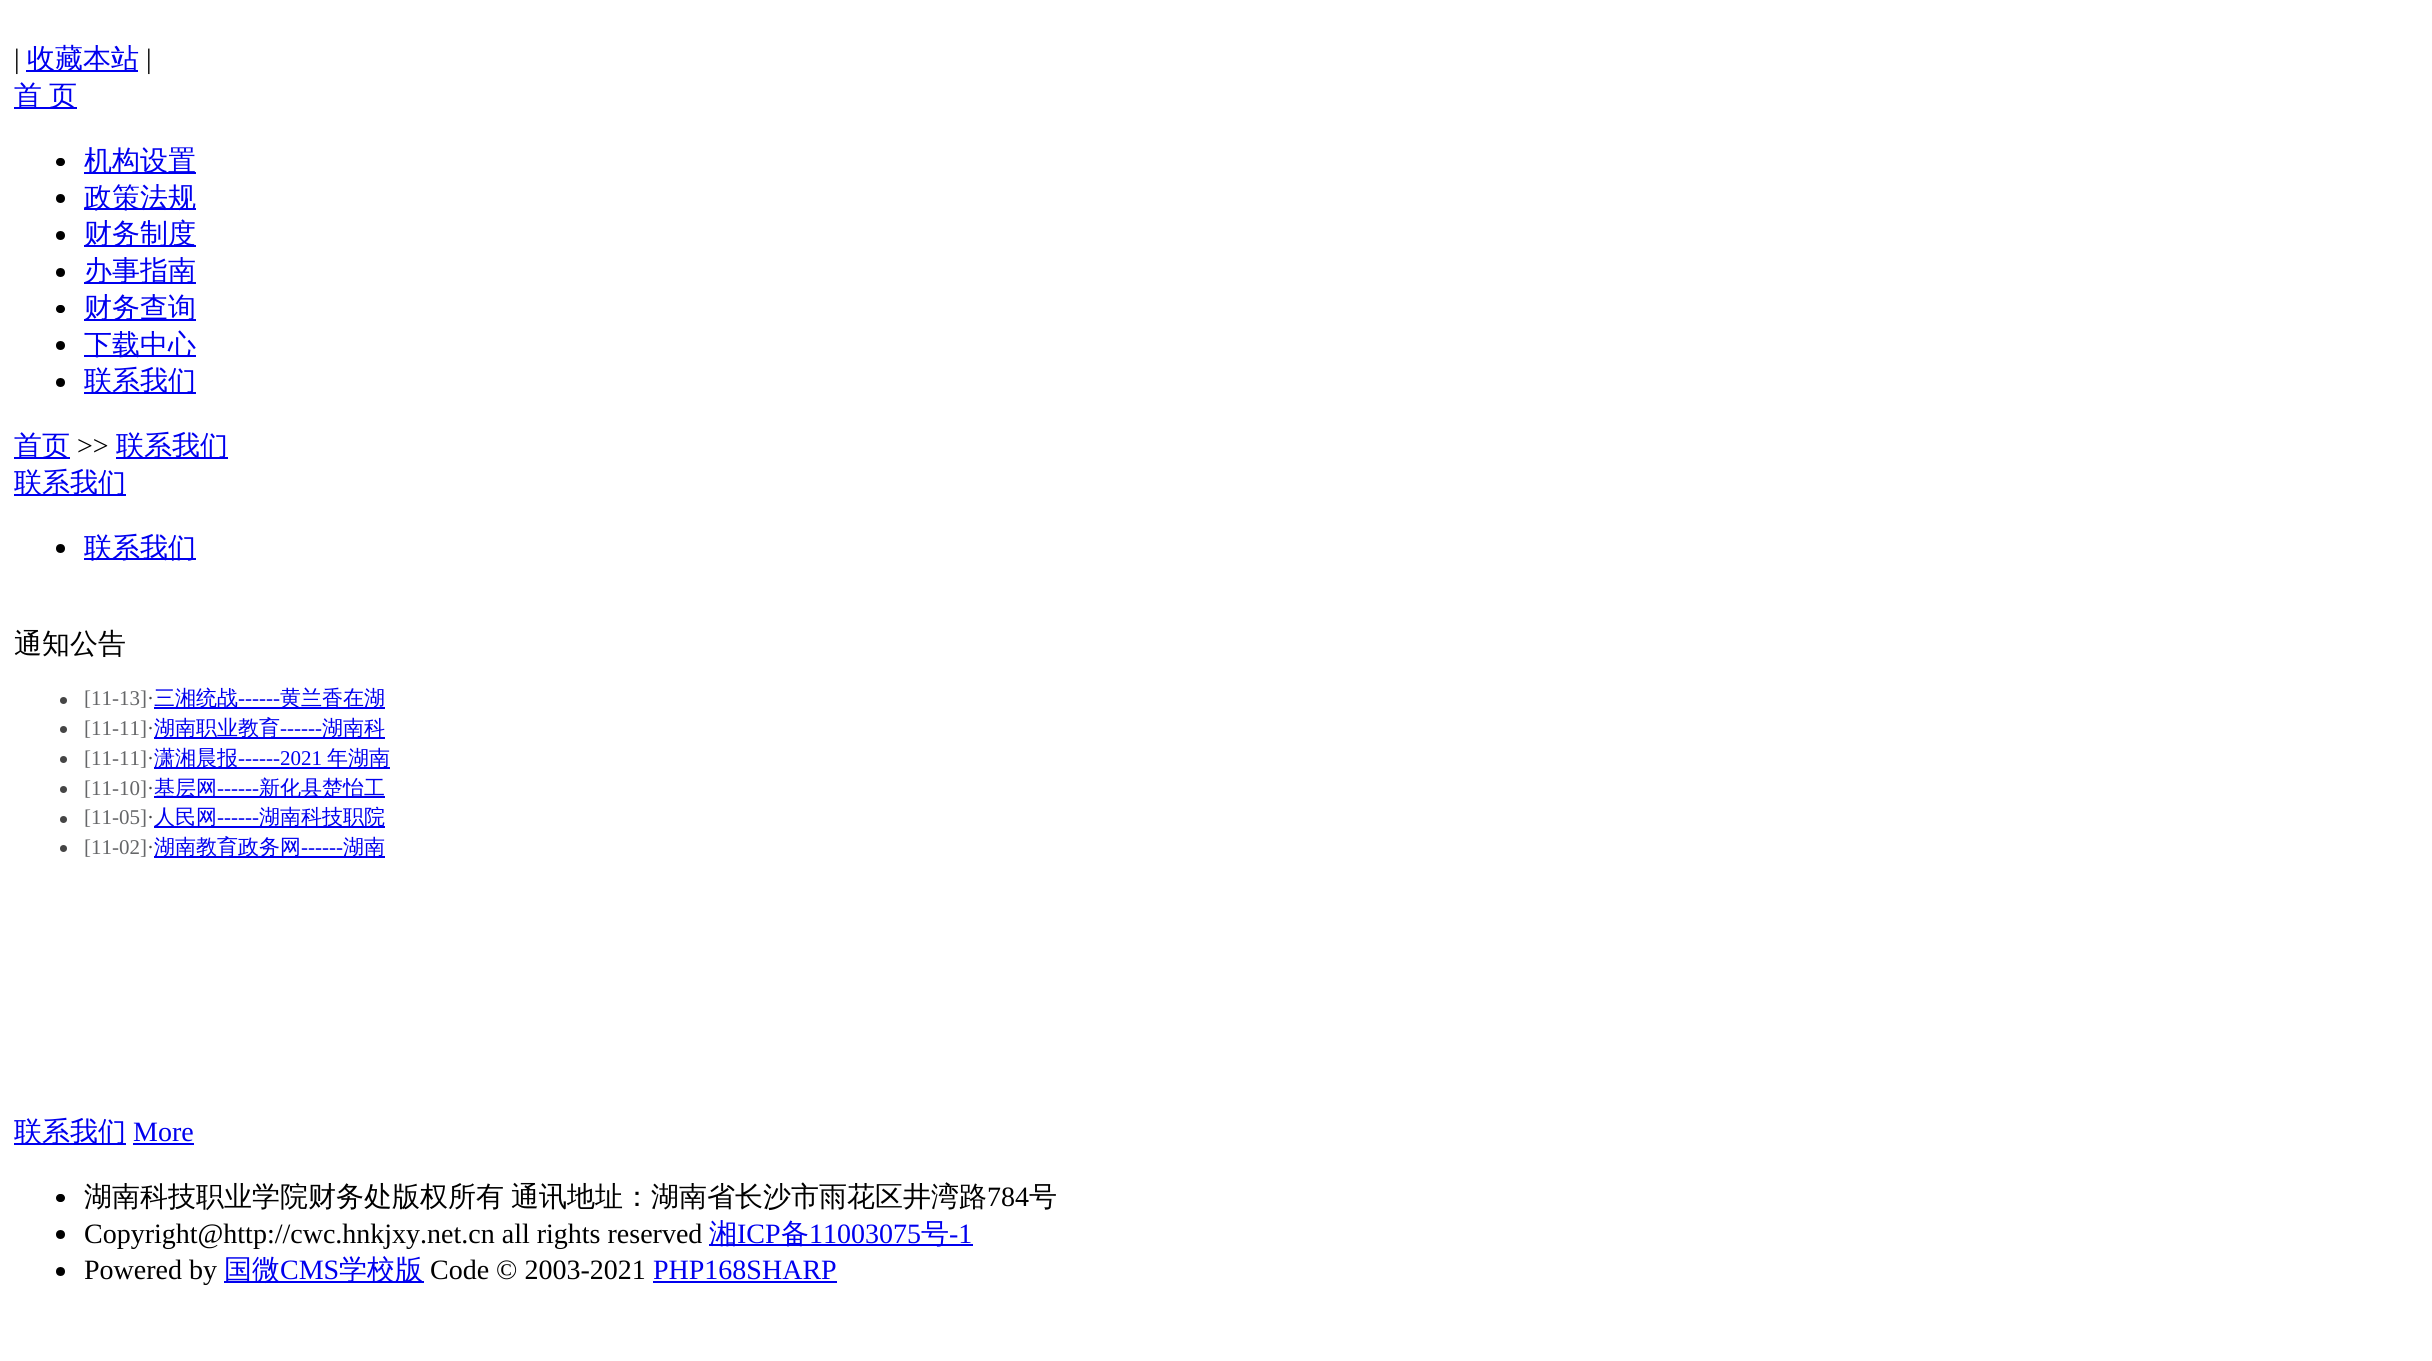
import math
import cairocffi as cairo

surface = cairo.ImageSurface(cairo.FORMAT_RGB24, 2432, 1361)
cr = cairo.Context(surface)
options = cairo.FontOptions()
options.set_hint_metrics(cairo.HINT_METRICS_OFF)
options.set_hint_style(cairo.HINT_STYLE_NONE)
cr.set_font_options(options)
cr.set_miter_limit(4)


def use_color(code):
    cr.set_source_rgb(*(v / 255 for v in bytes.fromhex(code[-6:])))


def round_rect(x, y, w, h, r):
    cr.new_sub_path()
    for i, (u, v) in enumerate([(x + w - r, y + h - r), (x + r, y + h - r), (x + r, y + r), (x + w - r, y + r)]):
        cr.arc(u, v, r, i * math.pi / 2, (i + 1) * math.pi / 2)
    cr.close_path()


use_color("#ffffff")
cr.paint()
cr.select_font_face("Liberation Serif")
cr.set_font_size(28)
use_color("#000000")
cr.move_to(14, 68)
cr.show_text("|")
use_color("#0000ee")
cr.rectangle(26, 70, 112, 2)
cr.fill()
cr.select_font_face("WenQuanYi Zen Hei Medium")
cr.move_to(27, 68)
cr.show_text("收藏本站")
cr.select_font_face("Liberation Serif")
use_color("#000000")
cr.move_to(146, 68)
cr.show_text("|")
use_color("#0000ee")
cr.rectangle(14, 107, 63, 2)
cr.fill()
cr.select_font_face("WenQuanYi Zen Hei Medium")
cr.move_to(14, 105)
cr.show_text("首")
cr.move_to(49, 105)
cr.show_text("页")
use_color("#000000")
round_rect(56, 158, 9, 8, 4)
cr.fill()
use_color("#0000ee")
cr.rectangle(84, 172, 112, 2)
cr.fill()
cr.move_to(84, 170)
cr.show_text("机构设置")
use_color("#000000")
cr.new_path()
cr.arc(60.5, 198.5, 4.5, 0, 2 * math.pi)
cr.fill()
use_color("#0000ee")
cr.rectangle(84, 208, 112, 2)
cr.fill()
cr.move_to(84, 207)
cr.show_text("政策法规")
use_color("#000000")
cr.new_path()
cr.arc(60.5, 235.5, 4.5, 0, 2 * math.pi)
cr.fill()
use_color("#0000ee")
cr.rectangle(84, 245, 112, 2)
cr.fill()
cr.move_to(84, 243)
cr.show_text("财务制度")
use_color("#000000")
cr.new_path()
cr.arc(60.5, 272.5, 4.5, 0, 2 * math.pi)
cr.fill()
use_color("#0000ee")
cr.rectangle(84, 282, 112, 2)
cr.fill()
cr.move_to(84, 280)
cr.show_text("办事指南")
use_color("#000000")
round_rect(56, 305, 9, 8, 4)
cr.fill()
use_color("#0000ee")
cr.rectangle(84, 319, 112, 2)
cr.fill()
cr.move_to(84, 317)
cr.show_text("财务查询")
use_color("#000000")
cr.new_path()
cr.arc(60.5, 345.5, 4.5, 0, 2 * math.pi)
cr.fill()
use_color("#0000ee")
cr.rectangle(84, 355, 112, 2)
cr.fill()
cr.move_to(84, 354)
cr.show_text("下载中心")
use_color("#000000")
cr.new_path()
cr.arc(60.5, 382.5, 4.5, 0, 2 * math.pi)
cr.fill()
use_color("#0000ee")
cr.rectangle(84, 392, 112, 2)
cr.fill()
cr.move_to(84, 390)
cr.show_text("联系我们")
cr.rectangle(14, 457, 56, 2)
cr.fill()
cr.move_to(14, 455)
cr.show_text("首页")
cr.select_font_face("Liberation Serif")
use_color("#000000")
cr.move_to(77, 455)
cr.show_text(">>")
use_color("#0000ee")
cr.rectangle(116, 457, 112, 2)
cr.fill()
cr.select_font_face("WenQuanYi Zen Hei Medium")
cr.move_to(116, 455)
cr.show_text("联系我们")
cr.rectangle(14, 494, 112, 2)
cr.fill()
cr.move_to(14, 492)
cr.show_text("联系我们")
use_color("#000000")
cr.new_path()
cr.arc(60.5, 548.5, 4.5, 0, 2 * math.pi)
cr.fill()
use_color("#0000ee")
cr.rectangle(84, 558, 112, 2)
cr.fill()
cr.move_to(84, 557)
cr.show_text("联系我们")
use_color("#000000")
cr.move_to(14, 653)
cr.show_text("通知公告")
use_color("#454545")
cr.new_path()
cr.arc(63.5, 700.5, 3.5, 0, 2 * math.pi)
cr.fill()
cr.select_font_face("Liberation Serif")
cr.set_font_size(21)
use_color("#656668")
cr.move_to(84, 705)
cr.show_text("[11-13]")
use_color("#454545")
cr.move_to(147, 705)
cr.show_text("·")
use_color("#0000ee")
cr.rectangle(154, 707, 231, 2)
cr.fill()
cr.select_font_face("WenQuanYi Zen Hei Medium")
cr.move_to(154, 705)
cr.show_text("三湘统战")
cr.select_font_face("Liberation Serif")
cr.move_to(238, 705)
cr.show_text("------")
cr.select_font_face("WenQuanYi Zen Hei Medium")
cr.move_to(280, 705)
cr.show_text("黄兰香在湖")
use_color("#454545")
cr.new_path()
cr.arc(63.5, 729.5, 3.5, 0, 2 * math.pi)
cr.fill()
cr.select_font_face("Liberation Serif")
use_color("#656668")
cr.move_to(84, 735)
cr.show_text("[11-11]")
use_color("#454545")
cr.move_to(147, 735)
cr.show_text("·")
use_color("#0000ee")
cr.rectangle(154, 737, 231, 2)
cr.fill()
cr.select_font_face("WenQuanYi Zen Hei Medium")
cr.move_to(154, 735)
cr.show_text("湖南职业教育")
cr.select_font_face("Liberation Serif")
cr.move_to(280, 735)
cr.show_text("------")
cr.select_font_face("WenQuanYi Zen Hei Medium")
cr.move_to(322, 735)
cr.show_text("湖南科")
use_color("#454545")
cr.new_path()
cr.arc(63.5, 759.5, 3.5, 0, 2 * math.pi)
cr.fill()
cr.select_font_face("Liberation Serif")
use_color("#656668")
cr.move_to(84, 765)
cr.show_text("[11-11]")
use_color("#454545")
cr.move_to(147, 765)
cr.show_text("·")
use_color("#0000ee")
cr.rectangle(154, 767, 236, 2)
cr.fill()
cr.select_font_face("WenQuanYi Zen Hei Medium")
cr.move_to(154, 765)
cr.show_text("潇湘晨报")
cr.select_font_face("Liberation Serif")
cr.move_to(238, 765)
cr.show_text("------2021")
cr.select_font_face("WenQuanYi Zen Hei Medium")
cr.move_to(327, 765)
cr.show_text("年湖南")
use_color("#454545")
cr.new_path()
cr.arc(63.5, 789.5, 3.5, 0, 2 * math.pi)
cr.fill()
cr.select_font_face("Liberation Serif")
use_color("#656668")
cr.move_to(84, 795)
cr.show_text("[11-10]")
use_color("#454545")
cr.move_to(147, 795)
cr.show_text("·")
use_color("#0000ee")
cr.rectangle(154, 796, 231, 2)
cr.fill()
cr.select_font_face("WenQuanYi Zen Hei Medium")
cr.move_to(154, 795)
cr.show_text("基层网")
cr.select_font_face("Liberation Serif")
cr.move_to(217, 795)
cr.show_text("------")
cr.select_font_face("WenQuanYi Zen Hei Medium")
cr.move_to(259, 795)
cr.show_text("新化县楚怡工")
use_color("#454545")
cr.new_path()
cr.arc(63.5, 819.5, 3.5, 0, 2 * math.pi)
cr.fill()
cr.select_font_face("Liberation Serif")
use_color("#656668")
cr.move_to(84, 824)
cr.show_text("[11-05]")
use_color("#454545")
cr.move_to(147, 824)
cr.show_text("·")
use_color("#0000ee")
cr.rectangle(154, 826, 231, 2)
cr.fill()
cr.select_font_face("WenQuanYi Zen Hei Medium")
cr.move_to(154, 824)
cr.show_text("人民网")
cr.select_font_face("Liberation Serif")
cr.move_to(217, 824)
cr.show_text("------")
cr.select_font_face("WenQuanYi Zen Hei Medium")
cr.move_to(259, 824)
cr.show_text("湖南科技职院")
use_color("#454545")
cr.new_path()
cr.arc(63.5, 848.5, 3.5, 0, 2 * math.pi)
cr.fill()
cr.select_font_face("Liberation Serif")
use_color("#656668")
cr.move_to(84, 854)
cr.show_text("[11-02]")
use_color("#454545")
cr.move_to(147, 854)
cr.show_text("·")
use_color("#0000ee")
cr.rectangle(154, 856, 231, 2)
cr.fill()
cr.select_font_face("WenQuanYi Zen Hei Medium")
cr.move_to(154, 854)
cr.show_text("湖南教育政务网")
cr.select_font_face("Liberation Serif")
cr.move_to(301, 854)
cr.show_text("------")
cr.select_font_face("WenQuanYi Zen Hei Medium")
cr.move_to(343, 854)
cr.show_text("湖南")
cr.rectangle(14, 1143, 112, 2)
cr.fill()
cr.set_font_size(28)
cr.move_to(14, 1141)
cr.show_text("联系我们")
cr.select_font_face("Liberation Serif")
cr.move_to(133, 1141)
cr.show_text("More")
cr.rectangle(133, 1143, 61, 2)
cr.fill()
use_color("#000000")
round_rect(56, 1194, 9, 8, 4)
cr.fill()
cr.select_font_face("WenQuanYi Zen Hei Medium")
cr.move_to(84, 1206)
cr.show_text("湖南科技职业学院财务处版权所有")
cr.move_to(511, 1206)
cr.show_text("通讯地址：湖南省长沙市雨花区井湾路")
cr.select_font_face("Liberation Serif")
cr.move_to(987, 1206)
cr.show_text("784")
cr.select_font_face("WenQuanYi Zen Hei Medium")
cr.move_to(1029, 1206)
cr.show_text("号")
cr.new_path()
cr.arc(60.5, 1234.5, 4.5, 0, 2 * math.pi)
cr.fill()
cr.select_font_face("Liberation Serif")
cr.move_to(84, 1243)
cr.show_text("Copyright@http://cwc.hnkjxy.net.cn all rights reserved")
use_color("#0000ee")
cr.rectangle(709, 1244, 264, 2)
cr.fill()
cr.select_font_face("WenQuanYi Zen Hei Medium")
cr.move_to(709, 1243)
cr.show_text("湘")
cr.select_font_face("Liberation Serif")
cr.move_to(737, 1243)
cr.show_text("ICP")
cr.select_font_face("WenQuanYi Zen Hei Medium")
cr.move_to(781, 1243)
cr.show_text("备")
cr.select_font_face("Liberation Serif")
cr.move_to(809, 1243)
cr.show_text("11003075")
cr.select_font_face("WenQuanYi Zen Hei Medium")
cr.move_to(921, 1243)
cr.show_text("号")
cr.select_font_face("Liberation Serif")
cr.move_to(949, 1243)
cr.show_text("-1")
use_color("#000000")
cr.new_path()
cr.arc(60.5, 1271.5, 4.5, 0, 2 * math.pi)
cr.fill()
cr.move_to(84, 1279)
cr.show_text("Powered by")
use_color("#0000ee")
cr.rectangle(224, 1281, 200, 2)
cr.fill()
cr.select_font_face("WenQuanYi Zen Hei Medium")
cr.move_to(224, 1279)
cr.show_text("国微")
cr.select_font_face("Liberation Serif")
cr.move_to(280, 1279)
cr.show_text("CMS")
cr.select_font_face("WenQuanYi Zen Hei Medium")
cr.move_to(339, 1279)
cr.show_text("学校版")
cr.select_font_face("Liberation Serif")
use_color("#000000")
cr.move_to(430, 1279)
cr.show_text("Code © 2003-2021")
use_color("#0000ee")
cr.move_to(653, 1279)
cr.show_text("PHP168SHARP")
cr.rectangle(653, 1281, 184, 2)
cr.fill()
surface.write_to_png("result.png")
